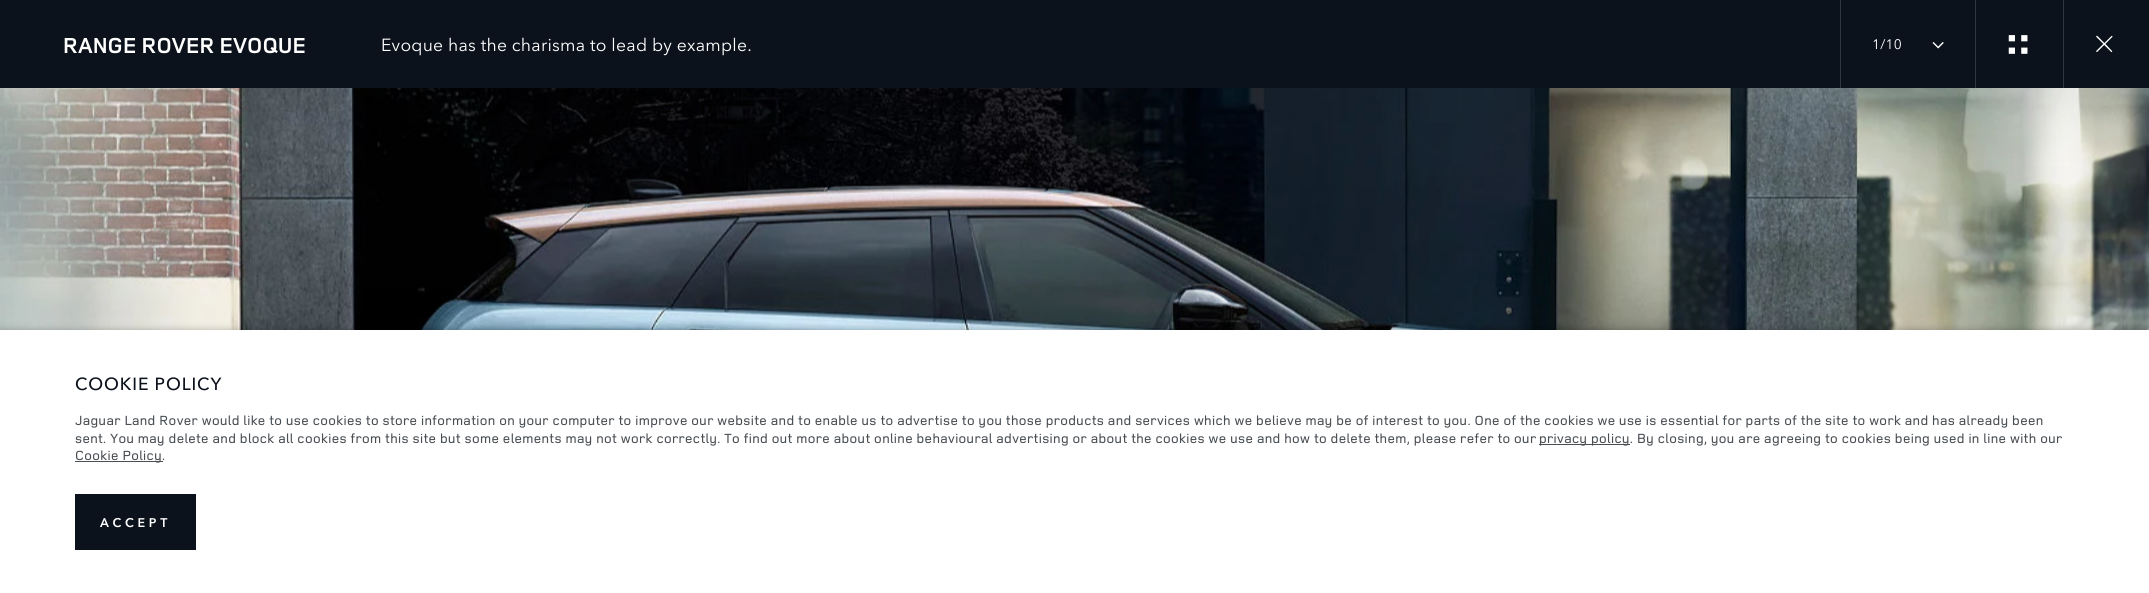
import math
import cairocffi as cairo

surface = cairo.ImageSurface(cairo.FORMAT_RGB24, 2149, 593)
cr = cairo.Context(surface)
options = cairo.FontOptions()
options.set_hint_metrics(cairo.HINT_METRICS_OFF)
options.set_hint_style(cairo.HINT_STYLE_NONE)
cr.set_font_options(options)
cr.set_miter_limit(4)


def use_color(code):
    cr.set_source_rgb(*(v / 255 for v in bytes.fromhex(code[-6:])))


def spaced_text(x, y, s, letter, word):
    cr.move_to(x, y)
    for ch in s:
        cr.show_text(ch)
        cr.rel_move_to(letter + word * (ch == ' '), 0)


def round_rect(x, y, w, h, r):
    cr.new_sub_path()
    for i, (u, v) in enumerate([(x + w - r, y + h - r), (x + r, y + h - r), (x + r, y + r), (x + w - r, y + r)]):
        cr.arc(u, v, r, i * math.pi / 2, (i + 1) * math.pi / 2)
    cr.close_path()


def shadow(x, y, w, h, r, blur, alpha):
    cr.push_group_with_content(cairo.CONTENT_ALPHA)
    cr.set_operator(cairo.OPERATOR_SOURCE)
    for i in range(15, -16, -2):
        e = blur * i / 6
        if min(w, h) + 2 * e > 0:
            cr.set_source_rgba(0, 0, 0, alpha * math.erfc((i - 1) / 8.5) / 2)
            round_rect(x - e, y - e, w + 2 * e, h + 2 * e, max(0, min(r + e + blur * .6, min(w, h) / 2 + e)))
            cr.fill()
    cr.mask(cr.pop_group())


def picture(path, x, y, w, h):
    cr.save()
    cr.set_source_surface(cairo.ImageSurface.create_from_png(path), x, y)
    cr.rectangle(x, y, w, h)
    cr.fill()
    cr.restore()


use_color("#ffffff")
cr.paint()
use_color("#0c121c")
cr.rectangle(0, 0, 2149, 88)
cr.fill()
cr.select_font_face("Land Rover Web", cairo.FONT_SLANT_NORMAL, cairo.FONT_WEIGHT_BOLD)
cr.set_font_size(22.5)
use_color("#ffffff")
spaced_text(63, 53, "RANGE ROVER EVOQUE", 0.1, 0)
cr.select_font_face("Avenir Next")
cr.set_font_size(17.5)
spaced_text(381, 51, "Evoque has the charisma to lead by example.", 0.25, 0)
use_color("#30363e")
cr.rectangle(1840, 0, 1, 88)
cr.fill()
cr.set_font_size(13.75)
use_color("#ffffff")
spaced_text(1872, 49, "1/10", 0.25, 0)
picture("img1.png", 1932, 42, 12, 7)
use_color("#30363e")
cr.rectangle(1975, 0, 1, 88)
cr.fill()
picture("img2.png", 2008, 35, 20, 19)
cr.rectangle(2063, 0, 1, 88)
cr.fill()
picture("img3.png", 2096, 35, 17, 17)
picture("img4.png", 0, 88, 2149, 242)
use_color("#010101")
shadow(0, 330, 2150, 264, 0, 4, 0.25)
use_color("#ffffff")
cr.rectangle(0, 330, 2149, 263)
cr.fill()
cr.select_font_face("Avenir Next Medium")
cr.set_font_size(17.5)
use_color("#0c121c")
spaced_text(75, 390, "COOKIE POLICY", 0.9, 0)
cr.select_font_face("Land Rover Web Medium")
cr.set_font_size(13.75)
use_color("#4a4f54")
spaced_text(75, 425, "Jaguar Land Rover would like to use cookies to store information on your computer to improve our website and to enable us to advertise to you those products and services which we believe may be of interest to you. One of the cookies we use is essential for parts of the site to work and has already been", 0.38, 0)
spaced_text(75, 443, "sent. You may delete and block all cookies from this site but some elements may not work correctly. To find out more about online behavioural advertising or about the cookies we use and how to delete them, please refer to our", 0.38, 0)
cr.rectangle(1539, 444, 91, 1)
cr.fill()
spaced_text(1539, 443, "privacy policy. By closing, you are agreeing to cookies being used in line with our", 0.38, 0)
cr.rectangle(75, 461, 88, 1)
cr.fill()
spaced_text(75, 460, "Cookie Policy.", 0.38, 0)
use_color("#0c121c")
cr.rectangle(75, 494, 121, 56)
cr.fill()
cr.select_font_face("Avenir Next SemiBold")
cr.set_font_size(12.5)
use_color("#ffffff")
spaced_text(100, 527, "ACCEPT", 3.75, 0)
surface.write_to_png("result.png")
